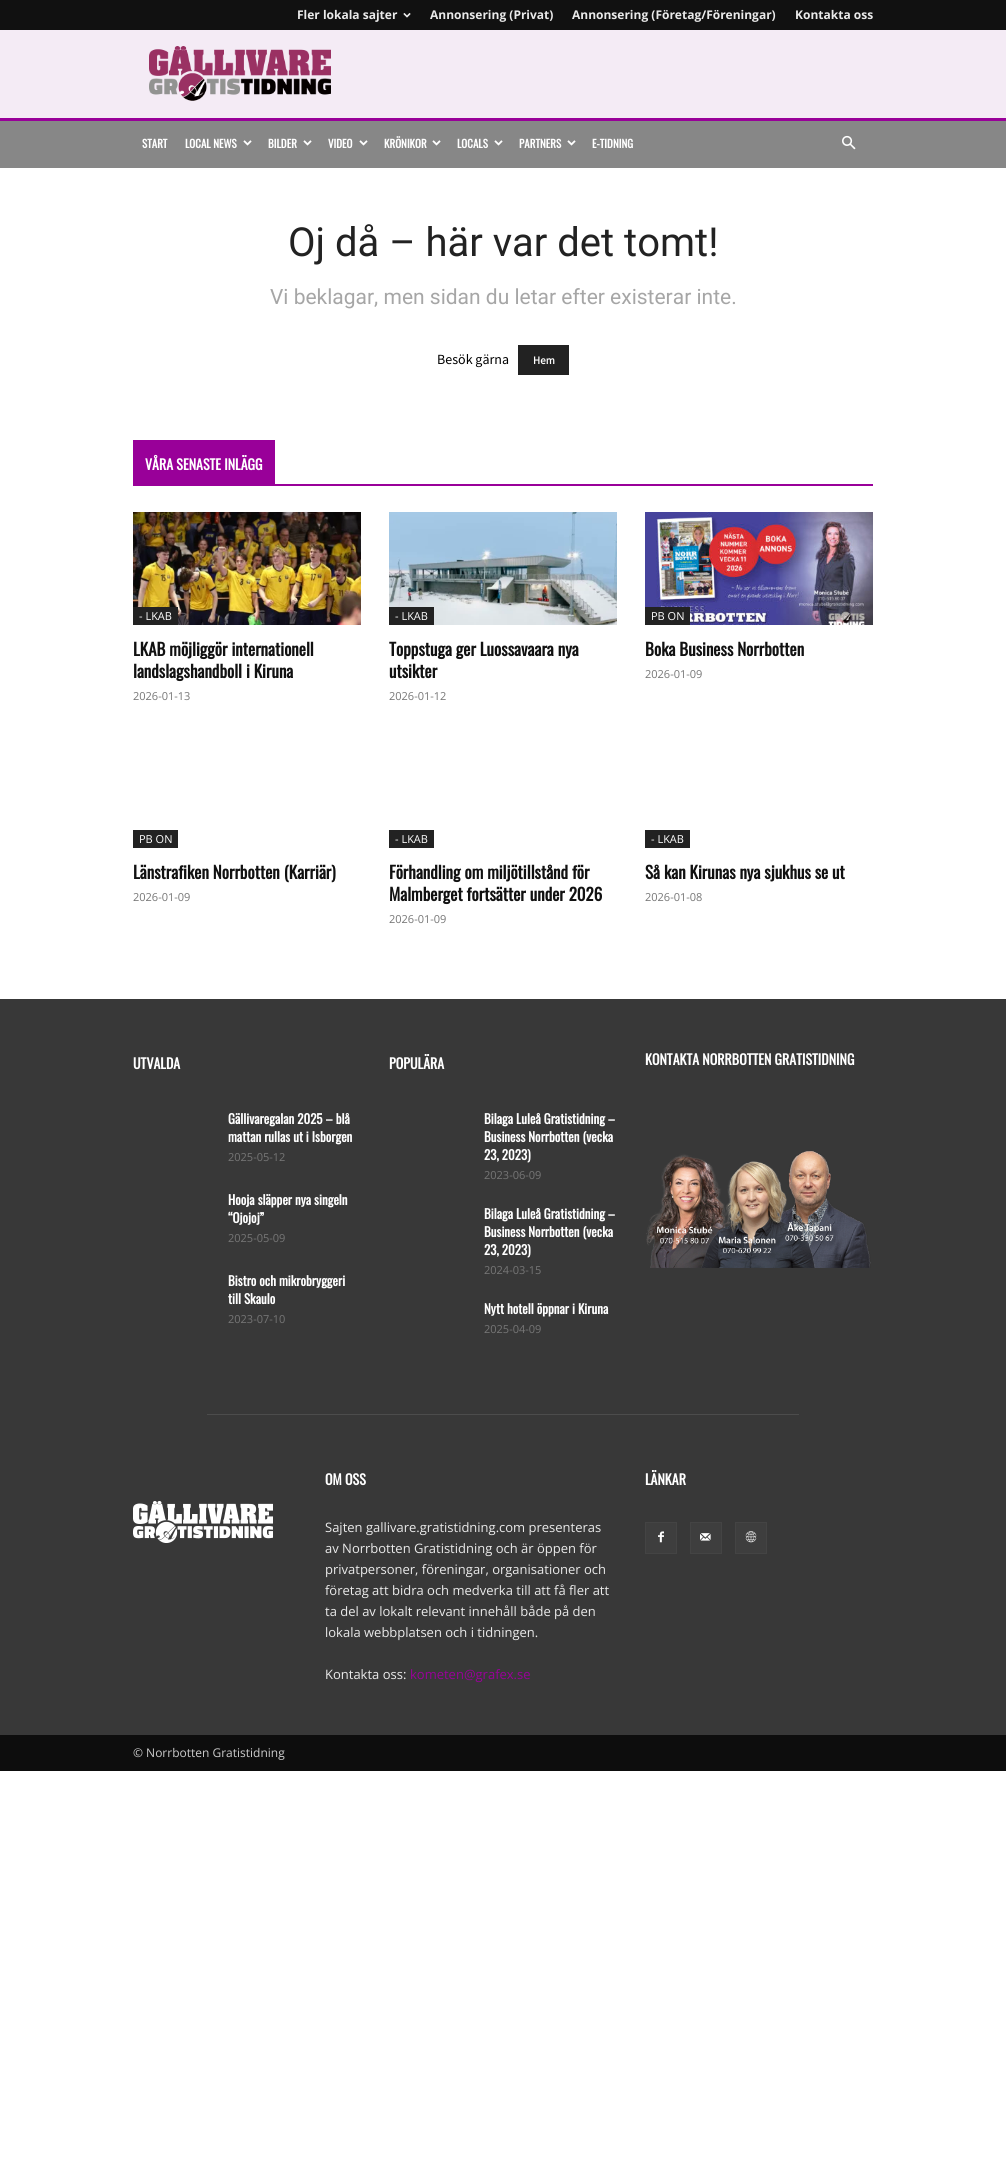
import math
import cairocffi as cairo

surface = cairo.ImageSurface(cairo.FORMAT_RGB24, 1006, 2179)
cr = cairo.Context(surface)
options = cairo.FontOptions()
options.set_hint_metrics(cairo.HINT_METRICS_OFF)
options.set_hint_style(cairo.HINT_STYLE_NONE)
cr.set_font_options(options)
cr.set_miter_limit(4)


def use_color(code):
    cr.set_source_rgb(*(v / 255 for v in bytes.fromhex(code[-6:])))


def picture(path, x, y, w, h):
    cr.save()
    cr.set_source_surface(cairo.ImageSurface.create_from_png(path), x, y)
    cr.rectangle(x, y, w, h)
    cr.fill()
    cr.restore()


use_color("#ffffff")
cr.paint()
use_color("#111111")
cr.rectangle(0, 0, 1006, 30)
cr.fill()
cr.select_font_face("Open Sans", cairo.FONT_SLANT_NORMAL, cairo.FONT_WEIGHT_BOLD)
cr.set_font_size(12)
use_color("#eaeaea")
cr.move_to(297, 19)
cr.show_text("Fler lokala sajter")
picture("img1.png", 403, 13, 8, 5)
cr.move_to(430, 19)
cr.show_text("Annonsering (Privat)")
cr.move_to(572, 19)
cr.show_text("Annonsering (Företag/Föreningar)")
cr.move_to(795, 19)
cr.show_text("Kontakta oss")
use_color("#f4ebf5")
cr.rectangle(0, 30, 1006, 88)
cr.fill()
picture("img2.png", 149, 46, 182, 55)
use_color("#878787")
cr.rectangle(0, 121, 1006, 47)
cr.fill()
use_color("#990099")
cr.rectangle(0, 118, 1006, 3)
cr.fill()
cr.select_font_face("Oswald", cairo.FONT_SLANT_NORMAL, cairo.FONT_WEIGHT_BOLD)
cr.set_font_size(11)
use_color("#ffffff")
cr.move_to(142, 148)
cr.show_text("START")
cr.move_to(185, 148)
cr.show_text("LOCAL NEWS")
picture("img3.png", 243, 140, 9, 6)
cr.move_to(268, 148)
cr.show_text("BILDER")
picture("img3.png", 303, 140, 9, 6)
cr.move_to(328, 148)
cr.show_text("VIDEO")
picture("img3.png", 359, 140, 9, 6)
cr.move_to(384, 148)
cr.show_text("KRÖNIKOR")
picture("img3.png", 432, 140, 9, 6)
cr.move_to(457, 148)
cr.show_text("LOCALS")
picture("img3.png", 494, 140, 9, 6)
cr.move_to(519, 148)
cr.show_text("PARTNERS")
picture("img3.png", 567, 140, 9, 6)
cr.move_to(592, 148)
cr.show_text("E-TIDNING")
picture("img4.png", 842, 135, 14, 15)
cr.select_font_face("Roboto")
cr.set_font_size(40)
use_color("#222222")
cr.move_to(288, 256)
cr.show_text("Oj då – här var det tomt!")
cr.set_font_size(21)
use_color("#a6a6a6")
cr.move_to(270, 304)
cr.show_text("Vi beklagar, men sidan du letar efter existerar inte.")
cr.select_font_face("Source Sans Pro")
cr.set_font_size(14)
use_color("#000000")
cr.move_to(437, 364)
cr.show_text("Besök gärna")
use_color("#222222")
cr.rectangle(518, 345, 51, 30)
cr.fill()
cr.select_font_face("Source Sans Pro", cairo.FONT_SLANT_NORMAL, cairo.FONT_WEIGHT_BOLD)
cr.set_font_size(11)
use_color("#ffffff")
cr.move_to(533, 364)
cr.show_text("Hem")
use_color("#990099")
cr.rectangle(133, 484, 740, 2)
cr.fill()
cr.rectangle(133, 440, 142, 44)
cr.fill()
cr.select_font_face("Oswald", cairo.FONT_SLANT_NORMAL, cairo.FONT_WEIGHT_BOLD)
cr.set_font_size(14)
use_color("#ffffff")
cr.move_to(145, 470)
cr.show_text("VÅRA SENASTE INLÄGG")
picture("img5.png", 133, 512, 228, 113)
use_color("#222222")
cr.rectangle(133, 607, 45, 18)
cr.fill()
cr.select_font_face("Open Sans")
cr.set_font_size(11)
use_color("#ffffff")
cr.move_to(139, 620)
cr.show_text("- LKAB")
cr.select_font_face("Oswald", cairo.FONT_SLANT_NORMAL, cairo.FONT_WEIGHT_BOLD)
cr.set_font_size(17)
use_color("#111111")
cr.move_to(133, 656)
cr.show_text("LKAB möjliggör internationell")
cr.move_to(133, 678)
cr.show_text("landslagshandboll i Kiruna")
cr.select_font_face("Open Sans")
cr.set_font_size(11)
use_color("#767676")
cr.move_to(133, 700)
cr.show_text("2026-01-13")
picture("img6.png", 389, 512, 228, 113)
use_color("#222222")
cr.rectangle(389, 607, 45, 18)
cr.fill()
use_color("#ffffff")
cr.move_to(395, 620)
cr.show_text("- LKAB")
cr.select_font_face("Oswald", cairo.FONT_SLANT_NORMAL, cairo.FONT_WEIGHT_BOLD)
cr.set_font_size(17)
use_color("#111111")
cr.move_to(389, 656)
cr.show_text("Toppstuga ger Luossavaara nya")
cr.move_to(389, 678)
cr.show_text("utsikter")
cr.select_font_face("Open Sans")
cr.set_font_size(11)
use_color("#767676")
cr.move_to(389, 700)
cr.show_text("2026-01-12")
picture("img7.png", 645, 512, 228, 113)
use_color("#222222")
cr.rectangle(645, 607, 45, 18)
cr.fill()
use_color("#ffffff")
cr.move_to(651, 620)
cr.show_text("PB ON")
cr.select_font_face("Oswald", cairo.FONT_SLANT_NORMAL, cairo.FONT_WEIGHT_BOLD)
cr.set_font_size(17)
use_color("#111111")
cr.move_to(645, 656)
cr.show_text("Boka Business Norrbotten")
cr.select_font_face("Open Sans")
cr.set_font_size(11)
use_color("#767676")
cr.move_to(645, 678)
cr.show_text("2026-01-09")
use_color("#222222")
cr.rectangle(133, 830, 45, 18)
cr.fill()
use_color("#ffffff")
cr.move_to(139, 843)
cr.show_text("PB ON")
cr.select_font_face("Oswald", cairo.FONT_SLANT_NORMAL, cairo.FONT_WEIGHT_BOLD)
cr.set_font_size(17)
use_color("#111111")
cr.move_to(133, 879)
cr.show_text("Länstrafiken Norrbotten (Karriär)")
cr.select_font_face("Open Sans")
cr.set_font_size(11)
use_color("#767676")
cr.move_to(133, 901)
cr.show_text("2026-01-09")
use_color("#222222")
cr.rectangle(389, 830, 45, 18)
cr.fill()
use_color("#ffffff")
cr.move_to(395, 843)
cr.show_text("- LKAB")
cr.select_font_face("Oswald", cairo.FONT_SLANT_NORMAL, cairo.FONT_WEIGHT_BOLD)
cr.set_font_size(17)
use_color("#111111")
cr.move_to(389, 879)
cr.show_text("Förhandling om miljötillstånd för")
cr.move_to(389, 901)
cr.show_text("Malmberget fortsätter under 2026")
cr.select_font_face("Open Sans")
cr.set_font_size(11)
use_color("#767676")
cr.move_to(389, 923)
cr.show_text("2026-01-09")
use_color("#222222")
cr.rectangle(645, 830, 45, 18)
cr.fill()
use_color("#ffffff")
cr.move_to(651, 843)
cr.show_text("- LKAB")
cr.select_font_face("Oswald", cairo.FONT_SLANT_NORMAL, cairo.FONT_WEIGHT_BOLD)
cr.set_font_size(17)
use_color("#111111")
cr.move_to(645, 879)
cr.show_text("Så kan Kirunas nya sjukhus se ut")
cr.select_font_face("Open Sans")
cr.set_font_size(11)
use_color("#767676")
cr.move_to(645, 901)
cr.show_text("2026-01-08")
use_color("#383838")
cr.rectangle(0, 999, 1006, 736)
cr.fill()
cr.select_font_face("Oswald", cairo.FONT_SLANT_NORMAL, cairo.FONT_WEIGHT_BOLD)
cr.set_font_size(14)
use_color("#ffffff")
cr.move_to(133, 1069)
cr.show_text("UTVALDA")
cr.set_font_size(13)
cr.move_to(228, 1124)
cr.show_text("Gällivaregalan 2025 – blå")
cr.move_to(228, 1142)
cr.show_text("mattan rullas ut i Isborgen")
cr.select_font_face("Open Sans")
cr.set_font_size(11)
use_color("#767676")
cr.move_to(228, 1161)
cr.show_text("2025-05-12")
cr.select_font_face("Oswald", cairo.FONT_SLANT_NORMAL, cairo.FONT_WEIGHT_BOLD)
cr.set_font_size(13)
use_color("#ffffff")
cr.move_to(228, 1205)
cr.show_text("Hooja släpper nya singeln")
cr.move_to(228, 1223)
cr.show_text("“Ojojoj”")
cr.select_font_face("Open Sans")
cr.set_font_size(11)
use_color("#767676")
cr.move_to(228, 1242)
cr.show_text("2025-05-09")
cr.select_font_face("Oswald", cairo.FONT_SLANT_NORMAL, cairo.FONT_WEIGHT_BOLD)
cr.set_font_size(13)
use_color("#ffffff")
cr.move_to(228, 1286)
cr.show_text("Bistro och mikrobryggeri")
cr.move_to(228, 1304)
cr.show_text("till Skaulo")
cr.select_font_face("Open Sans")
cr.set_font_size(11)
use_color("#767676")
cr.move_to(228, 1323)
cr.show_text("2023-07-10")
cr.select_font_face("Oswald", cairo.FONT_SLANT_NORMAL, cairo.FONT_WEIGHT_BOLD)
cr.set_font_size(14)
use_color("#ffffff")
cr.move_to(389, 1069)
cr.show_text("POPULÄRA")
cr.set_font_size(13)
cr.move_to(484, 1124)
cr.show_text("Bilaga Luleå Gratistidning –")
cr.move_to(484, 1142)
cr.show_text("Business Norrbotten (vecka")
cr.move_to(484, 1160)
cr.show_text("23, 2023)")
cr.select_font_face("Open Sans")
cr.set_font_size(11)
use_color("#767676")
cr.move_to(484, 1179)
cr.show_text("2023-06-09")
cr.select_font_face("Oswald", cairo.FONT_SLANT_NORMAL, cairo.FONT_WEIGHT_BOLD)
cr.set_font_size(13)
use_color("#ffffff")
cr.move_to(484, 1219)
cr.show_text("Bilaga Luleå Gratistidning –")
cr.move_to(484, 1237)
cr.show_text("Business Norrbotten (vecka")
cr.move_to(484, 1255)
cr.show_text("23, 2023)")
cr.select_font_face("Open Sans")
cr.set_font_size(11)
use_color("#767676")
cr.move_to(484, 1274)
cr.show_text("2024-03-15")
cr.select_font_face("Oswald", cairo.FONT_SLANT_NORMAL, cairo.FONT_WEIGHT_BOLD)
cr.set_font_size(13)
use_color("#ffffff")
cr.move_to(484, 1314)
cr.show_text("Nytt hotell öppnar i Kiruna")
cr.select_font_face("Open Sans")
cr.set_font_size(11)
use_color("#767676")
cr.move_to(484, 1333)
cr.show_text("2025-04-09")
cr.select_font_face("Oswald", cairo.FONT_SLANT_NORMAL, cairo.FONT_WEIGHT_BOLD)
cr.set_font_size(14)
use_color("#ffffff")
cr.move_to(645, 1065)
cr.show_text("KONTAKTA NORRBOTTEN GRATISTIDNING")
picture("img8.png", 646, 1151, 225, 117)
use_color("#4c4c4c")
cr.rectangle(207, 1414, 592, 1)
cr.fill()
picture("img9.png", 133, 1501, 140, 42)
use_color("#ffffff")
cr.move_to(325, 1485)
cr.show_text("OM OSS")
cr.select_font_face("Open Sans")
cr.set_font_size(13)
use_color("#eaeaea")
cr.move_to(325, 1532)
cr.show_text("Sajten gallivare.gratistidning.com presenteras")
cr.move_to(325, 1553)
cr.show_text("av Norrbotten Gratistidning och är öppen för")
cr.move_to(325, 1574)
cr.show_text("privatpersoner, föreningar, organisationer och")
cr.move_to(325, 1595)
cr.show_text("företag att bidra och medverka till att få fler att")
cr.move_to(325, 1616)
cr.show_text("ta del av lokalt relevant innehåll både på den")
cr.move_to(325, 1637)
cr.show_text("lokala webbplatsen och i tidningen.")
cr.move_to(325, 1679)
cr.show_text("Kontakta oss:")
use_color("#990099")
cr.move_to(410, 1679)
cr.show_text("kometen@grafex.se")
cr.select_font_face("Oswald", cairo.FONT_SLANT_NORMAL, cairo.FONT_WEIGHT_BOLD)
cr.set_font_size(14)
use_color("#ffffff")
cr.move_to(645, 1485)
cr.show_text("LÄNKAR")
use_color("#3e3e3e")
cr.rectangle(646, 1523, 30, 30)
cr.fill()
picture("img10.png", 658, 1531, 6, 12)
cr.rectangle(645.5, 1522.5, 31, 31)
use_color("#444444")
cr.set_line_width(1)
cr.stroke()
use_color("#3e3e3e")
cr.rectangle(691, 1523, 30, 30)
cr.fill()
picture("img11.png", 700, 1533, 11, 8)
cr.rectangle(690.5, 1522.5, 31, 31)
use_color("#444444")
cr.stroke()
use_color("#3e3e3e")
cr.rectangle(736, 1523, 30, 30)
cr.fill()
picture("img12.png", 745, 1531, 12, 12)
cr.rectangle(735.5, 1522.5, 31, 31)
use_color("#444444")
cr.stroke()
use_color("#0d0d0d")
cr.rectangle(0, 1735, 1006, 36)
cr.fill()
cr.select_font_face("Open Sans")
cr.set_font_size(12)
use_color("#cccccc")
cr.move_to(133, 1757)
cr.show_text("© Norrbotten Gratistidning")
surface.write_to_png("result.png")
